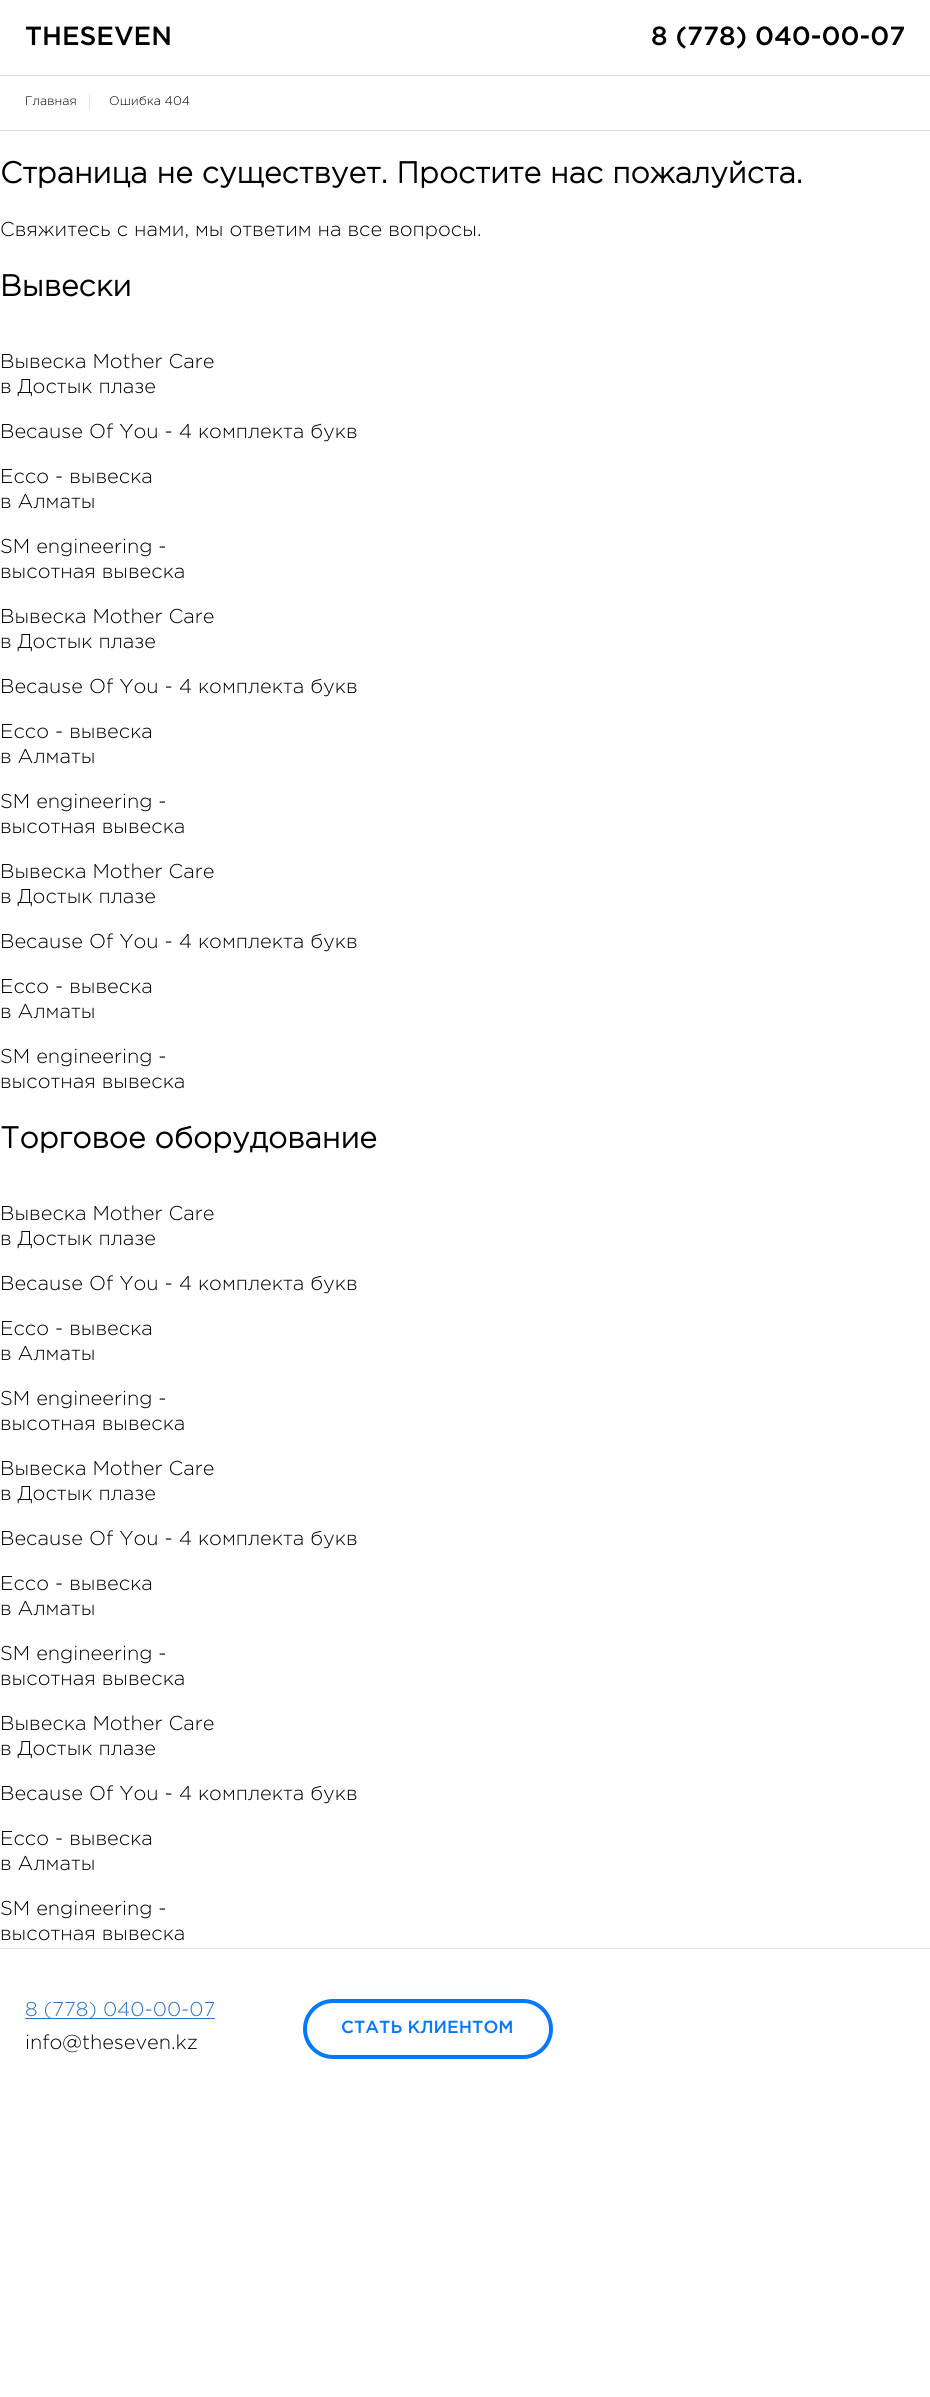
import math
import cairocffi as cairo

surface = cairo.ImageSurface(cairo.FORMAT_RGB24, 930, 2397)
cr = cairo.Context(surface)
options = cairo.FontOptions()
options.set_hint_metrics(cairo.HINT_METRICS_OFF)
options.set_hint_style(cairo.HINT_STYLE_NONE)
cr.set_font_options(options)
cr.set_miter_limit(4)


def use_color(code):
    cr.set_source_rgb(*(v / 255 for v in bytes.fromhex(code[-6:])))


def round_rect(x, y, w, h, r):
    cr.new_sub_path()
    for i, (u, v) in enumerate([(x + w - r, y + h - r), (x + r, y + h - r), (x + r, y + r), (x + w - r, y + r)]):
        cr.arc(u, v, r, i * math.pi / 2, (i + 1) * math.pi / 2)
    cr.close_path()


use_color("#ffffff")
cr.paint()
cr.select_font_face("Gotham Medium")
cr.set_font_size(26.25)
use_color("#000000")
cr.move_to(25, 45)
cr.show_text("THESEVEN")
cr.move_to(651, 45)
cr.show_text("8 (778) 040-00-07")
use_color("#dfdfe2")
cr.rectangle(0, 75, 930, 1)
cr.fill()
cr.rectangle(0, 130, 930, 1)
cr.fill()
use_color("#e5e5e5")
cr.rectangle(89, 95, 1, 16)
cr.fill()
cr.select_font_face("Gotham Light")
cr.set_font_size(12.5)
use_color("#000000")
cr.move_to(25, 105)
cr.show_text("Главная")
cr.move_to(109, 105)
cr.show_text("Ошибка 404")
cr.select_font_face("Gotham", cairo.FONT_SLANT_NORMAL, cairo.FONT_WEIGHT_BOLD)
cr.set_font_size(30)
cr.move_to(0, 183)
cr.show_text("Страница не существует. Простите нас пожалуйста.")
cr.select_font_face("Gotham Light")
cr.set_font_size(20)
cr.move_to(0, 236)
cr.show_text("Свяжитесь с нами, мы ответим на все вопросы.")
cr.select_font_face("Gotham", cairo.FONT_SLANT_NORMAL, cairo.FONT_WEIGHT_BOLD)
cr.set_font_size(30)
cr.move_to(0, 296)
cr.show_text("Вывески")
cr.select_font_face("Gotham Light")
cr.set_font_size(20)
cr.move_to(0, 368)
cr.show_text("Вывеска Mother Care")
cr.move_to(0, 393)
cr.show_text("в Достык плазе")
cr.move_to(0, 438)
cr.show_text("Because Of You - 4 комплекта букв")
cr.move_to(0, 483)
cr.show_text("Ecco - вывеска")
cr.move_to(0, 508)
cr.show_text("в Алматы")
cr.move_to(0, 553)
cr.show_text("SM engineering -")
cr.move_to(0, 578)
cr.show_text("высотная вывеска")
cr.move_to(0, 623)
cr.show_text("Вывеска Mother Care")
cr.move_to(0, 648)
cr.show_text("в Достык плазе")
cr.move_to(0, 693)
cr.show_text("Because Of You - 4 комплекта букв")
cr.move_to(0, 738)
cr.show_text("Ecco - вывеска")
cr.move_to(0, 763)
cr.show_text("в Алматы")
cr.move_to(0, 808)
cr.show_text("SM engineering -")
cr.move_to(0, 833)
cr.show_text("высотная вывеска")
cr.move_to(0, 878)
cr.show_text("Вывеска Mother Care")
cr.move_to(0, 903)
cr.show_text("в Достык плазе")
cr.move_to(0, 948)
cr.show_text("Because Of You - 4 комплекта букв")
cr.move_to(0, 993)
cr.show_text("Ecco - вывеска")
cr.move_to(0, 1018)
cr.show_text("в Алматы")
cr.move_to(0, 1063)
cr.show_text("SM engineering -")
cr.move_to(0, 1088)
cr.show_text("высотная вывеска")
cr.select_font_face("Gotham", cairo.FONT_SLANT_NORMAL, cairo.FONT_WEIGHT_BOLD)
cr.set_font_size(30)
cr.move_to(0, 1148)
cr.show_text("Торговое оборудование")
cr.select_font_face("Gotham Light")
cr.set_font_size(20)
cr.move_to(0, 1220)
cr.show_text("Вывеска Mother Care")
cr.move_to(0, 1245)
cr.show_text("в Достык плазе")
cr.move_to(0, 1290)
cr.show_text("Because Of You - 4 комплекта букв")
cr.move_to(0, 1335)
cr.show_text("Ecco - вывеска")
cr.move_to(0, 1360)
cr.show_text("в Алматы")
cr.move_to(0, 1405)
cr.show_text("SM engineering -")
cr.move_to(0, 1430)
cr.show_text("высотная вывеска")
cr.move_to(0, 1475)
cr.show_text("Вывеска Mother Care")
cr.move_to(0, 1500)
cr.show_text("в Достык плазе")
cr.move_to(0, 1545)
cr.show_text("Because Of You - 4 комплекта букв")
cr.move_to(0, 1590)
cr.show_text("Ecco - вывеска")
cr.move_to(0, 1615)
cr.show_text("в Алматы")
cr.move_to(0, 1660)
cr.show_text("SM engineering -")
cr.move_to(0, 1685)
cr.show_text("высотная вывеска")
cr.move_to(0, 1730)
cr.show_text("Вывеска Mother Care")
cr.move_to(0, 1755)
cr.show_text("в Достык плазе")
cr.move_to(0, 1800)
cr.show_text("Because Of You - 4 комплекта букв")
cr.move_to(0, 1845)
cr.show_text("Ecco - вывеска")
cr.move_to(0, 1870)
cr.show_text("в Алматы")
cr.move_to(0, 1915)
cr.show_text("SM engineering -")
cr.move_to(0, 1940)
cr.show_text("высотная вывеска")
use_color("#e5e5e5")
cr.rectangle(0, 1948, 930, 1)
cr.fill()
use_color("#2474c9")
cr.rectangle(25, 2018, 190, 1)
cr.fill()
cr.move_to(25, 2016)
cr.show_text("8 (778) 040-00-07")
use_color("#000000")
cr.move_to(25, 2049)
cr.show_text("info@theseven.kz")
round_rect(305, 2001, 246, 56, 28)
use_color("#0678fd")
cr.set_line_width(4)
cr.stroke()
cr.select_font_face("Gotham Medium")
cr.set_font_size(17.5)
cr.move_to(341, 2033)
cr.show_text("СТАТЬ КЛИЕНТОМ")
surface.write_to_png("result.png")
